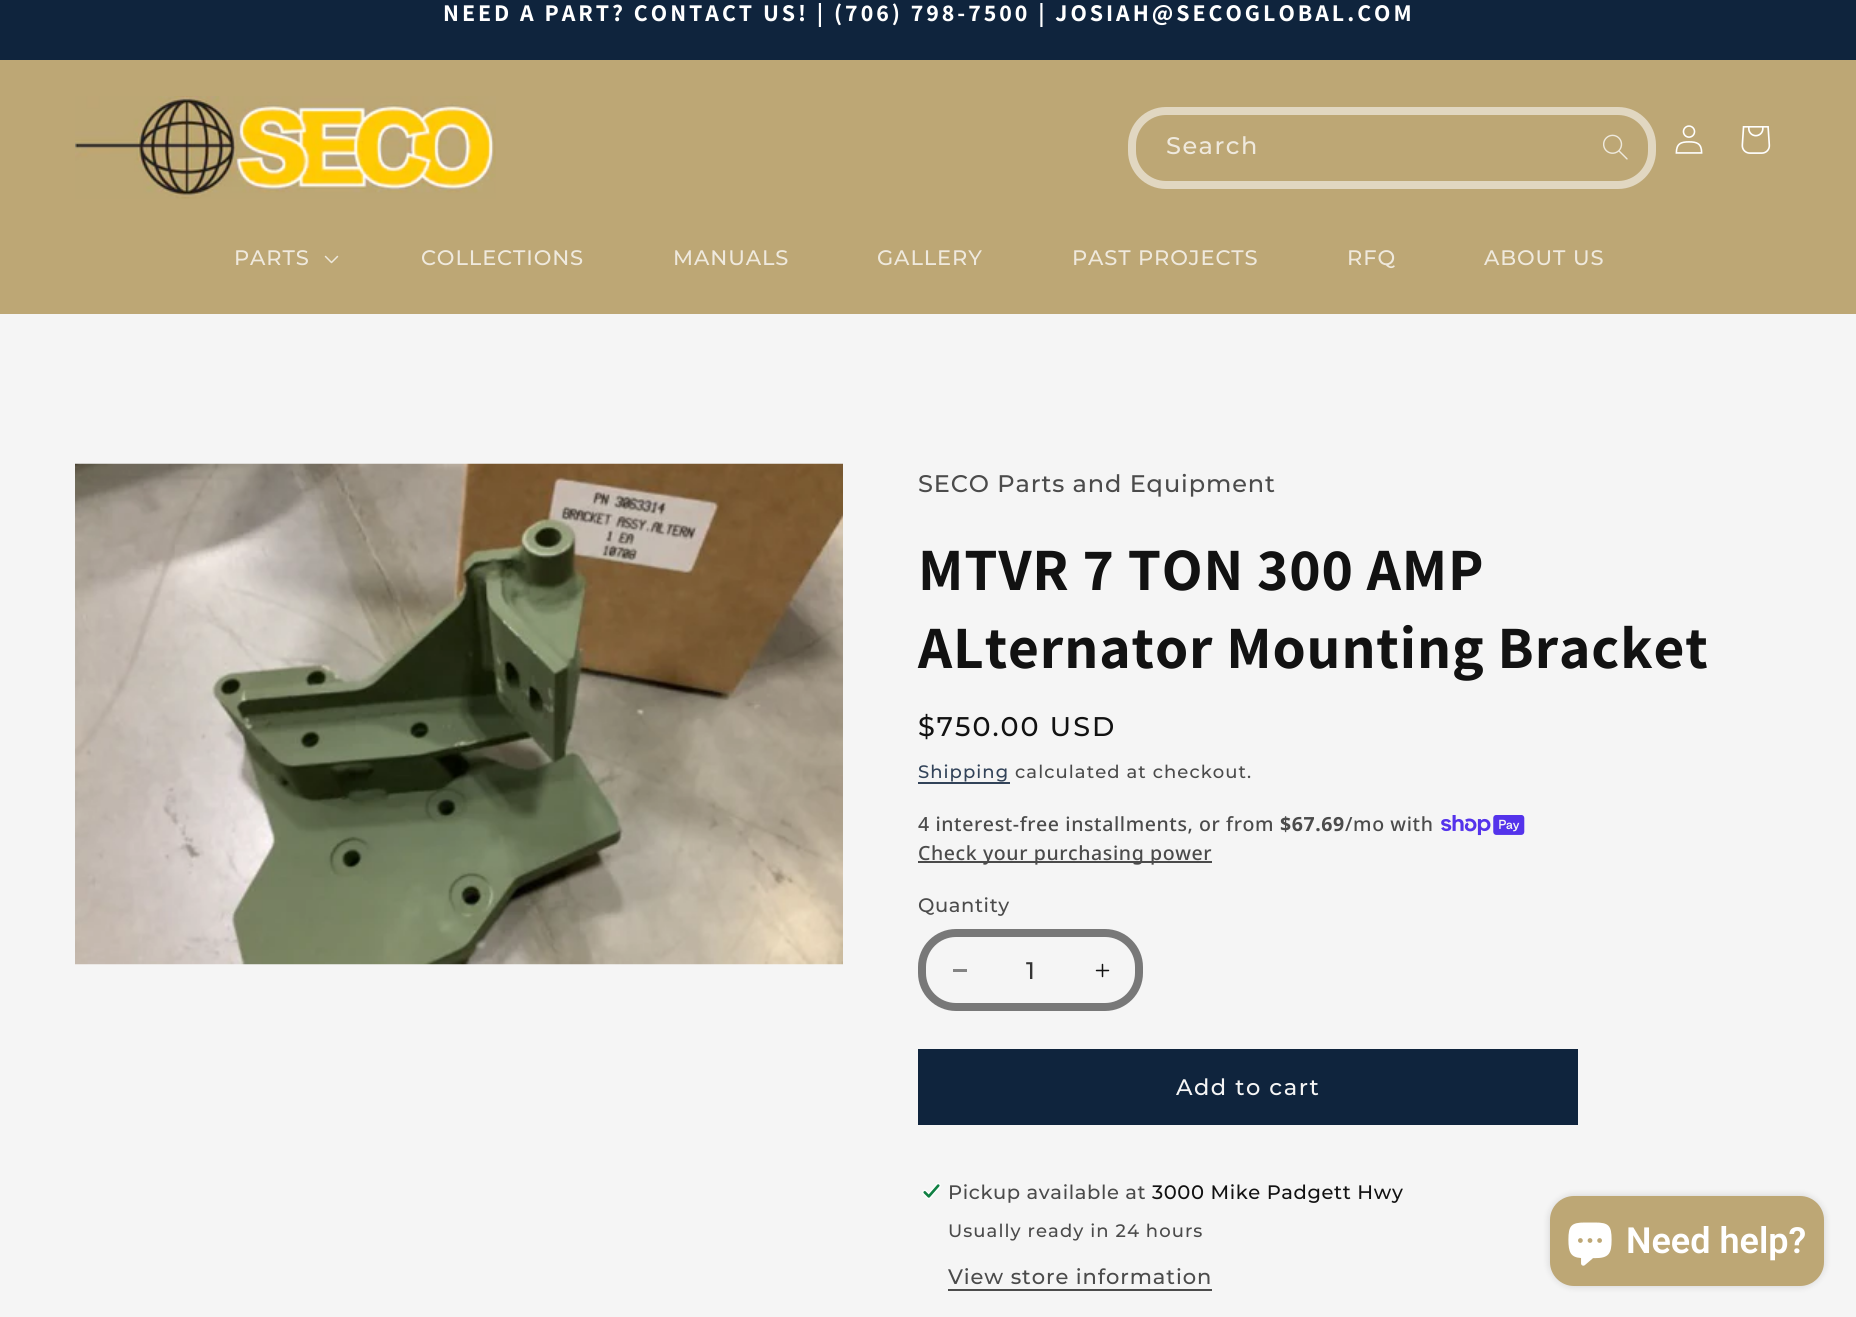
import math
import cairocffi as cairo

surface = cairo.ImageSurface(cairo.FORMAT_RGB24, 1856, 1317)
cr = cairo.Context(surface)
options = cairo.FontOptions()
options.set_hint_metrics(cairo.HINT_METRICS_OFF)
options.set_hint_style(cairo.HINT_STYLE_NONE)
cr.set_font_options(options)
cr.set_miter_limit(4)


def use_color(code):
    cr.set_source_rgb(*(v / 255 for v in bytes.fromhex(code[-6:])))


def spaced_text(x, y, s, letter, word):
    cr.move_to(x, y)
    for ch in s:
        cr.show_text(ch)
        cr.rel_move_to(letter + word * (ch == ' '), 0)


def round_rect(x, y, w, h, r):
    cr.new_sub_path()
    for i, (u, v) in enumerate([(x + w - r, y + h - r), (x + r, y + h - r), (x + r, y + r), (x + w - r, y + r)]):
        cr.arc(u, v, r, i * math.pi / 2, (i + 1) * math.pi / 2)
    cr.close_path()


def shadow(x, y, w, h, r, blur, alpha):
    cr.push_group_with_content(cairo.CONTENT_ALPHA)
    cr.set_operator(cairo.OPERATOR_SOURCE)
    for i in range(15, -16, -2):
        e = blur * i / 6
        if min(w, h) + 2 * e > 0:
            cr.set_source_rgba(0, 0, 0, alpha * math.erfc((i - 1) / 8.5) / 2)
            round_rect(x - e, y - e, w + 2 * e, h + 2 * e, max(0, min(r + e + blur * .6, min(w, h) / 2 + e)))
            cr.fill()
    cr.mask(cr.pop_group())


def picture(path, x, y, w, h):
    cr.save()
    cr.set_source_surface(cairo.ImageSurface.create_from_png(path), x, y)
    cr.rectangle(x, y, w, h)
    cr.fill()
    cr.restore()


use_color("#bda775")
cr.paint()
use_color("#0f243d")
cr.rectangle(0, 0, 1856, 60)
cr.fill()
cr.select_font_face("Assistant", cairo.FONT_SLANT_NORMAL, cairo.FONT_WEIGHT_BOLD)
cr.set_font_size(24)
use_color("#ffffff")
spaced_text(443, 21, "NEED A PART? CONTACT US! | (706) 798-7500 | JOSIAH@SECOGLOBAL.COM", 3, 0)
picture("img1.png", 75, 96, 421, 103)
picture("img2.png", 1603, 134, 25, 26)
round_rect(1132, 111, 520, 74, 34)
use_color("#e1d7c1")
cr.set_line_width(8)
cr.stroke()
cr.select_font_face("Montserrat Medium")
use_color("#efe9dd")
spaced_text(1166, 154, "Search", 1.5, 0)
picture("img3.png", 1675, 125, 28, 29)
picture("img4.png", 1741, 126, 30, 28)
cr.set_font_size(21)
spaced_text(234, 265, "PARTS", 0.9, 0)
picture("img5.png", 324, 255, 15, 9)
spaced_text(421, 265, "COLLECTIONS", 0.9, 0)
spaced_text(673, 265, "MANUALS", 0.9, 0)
spaced_text(877, 265, "GALLERY", 0.9, 0)
spaced_text(1072, 265, "PAST PROJECTS", 0.9, 0)
spaced_text(1347, 265, "RFQ", 0.9, 0)
spaced_text(1484, 265, "ABOUT US", 0.9, 0)
use_color("#f5f5f5")
cr.rectangle(0, 314, 1856, 1003)
cr.fill()
picture("img6.png", 75, 463, 768, 502)
cr.set_font_size(24)
use_color("#4b4b4b")
spaced_text(918, 492, "SECO Parts and Equipment", 0.9, 0)
cr.select_font_face("Assistant", cairo.FONT_SLANT_NORMAL, cairo.FONT_WEIGHT_BOLD)
cr.set_font_size(60)
use_color("#121212")
spaced_text(918, 590, "MTVR 7 TON 300 AMP", 0.9, 0)
spaced_text(918, 668, "ALternator Mounting Bracket", 0.9, 0)
cr.select_font_face("Montserrat Medium")
cr.set_font_size(27)
spaced_text(918, 736, "$750.00 USD", 2, 0)
cr.set_font_size(18)
use_color("#324359")
spaced_text(918, 778, "Shipping", 1.05, 0)
cr.rectangle(918, 782, 92, 2)
cr.fill()
use_color("#4b4b4b")
spaced_text(1015, 778, "calculated at checkout.", 1.05, 0)
cr.select_font_face("Noto Sans Medium")
cr.set_font_size(19.5)
spaced_text(918, 831, "4 interest-free installments, or from", 0.6, 0)
cr.select_font_face("Noto Sans", cairo.FONT_SLANT_NORMAL, cairo.FONT_WEIGHT_BOLD)
spaced_text(1280, 831, "$67.69", 0.6, 0)
cr.select_font_face("Noto Sans Medium")
spaced_text(1345, 831, "/mo with", 0.6, 0)
picture("img7.png", 1441, 815, 84, 21)
cr.rectangle(918, 861, 294, 2)
cr.fill()
spaced_text(918, 860, "Check your purchasing power", 0.6, 0)
cr.select_font_face("Montserrat Medium")
spaced_text(918, 912, "Quantity", 0.6, 0)
use_color("#848484")
cr.rectangle(953, 969, 14, 3)
cr.fill()
picture("img8.png", 1095, 963, 15, 15)
round_rect(922, 933, 217, 74, 34)
use_color("#787878")
cr.stroke()
cr.set_font_size(24)
use_color("#343434")
cr.move_to(1026, 979)
cr.show_text("1")
use_color("#0f243d")
cr.rectangle(918, 1049, 660, 76)
cr.fill()
cr.set_font_size(22.5)
use_color("#f5f5f5")
spaced_text(1176, 1095, "Add to cart", 1.5, 0)
picture("img9.png", 922, 1183, 19, 16)
cr.set_font_size(19.5)
use_color("#4b4b4b")
spaced_text(948, 1199, "Pickup available at", 0.6, 0)
use_color("#121212")
spaced_text(1152, 1199, "3000 Mike Padgett Hwy", 0.6, 0)
cr.set_font_size(18)
use_color("#4b4b4b")
spaced_text(948, 1237, "Usually ready in 24 hours", 1.05, 0)
cr.set_font_size(21)
spaced_text(948, 1284, "View store information", 0.9, 0)
cr.rectangle(948, 1289, 264, 2)
cr.fill()
use_color("#000000")
shadow(1550, 1196, 274, 90, 24, 4, 0.15)
use_color("#bda775")
round_rect(1550, 1196, 274, 90, 24)
cr.fill()
picture("img10.png", 1568, 1222, 44, 44)
cr.select_font_face("Roboto SemiBold")
cr.set_font_size(36)
use_color("#ffffff")
cr.move_to(1626, 1253)
cr.show_text("Need help?")
surface.write_to_png("result.png")
